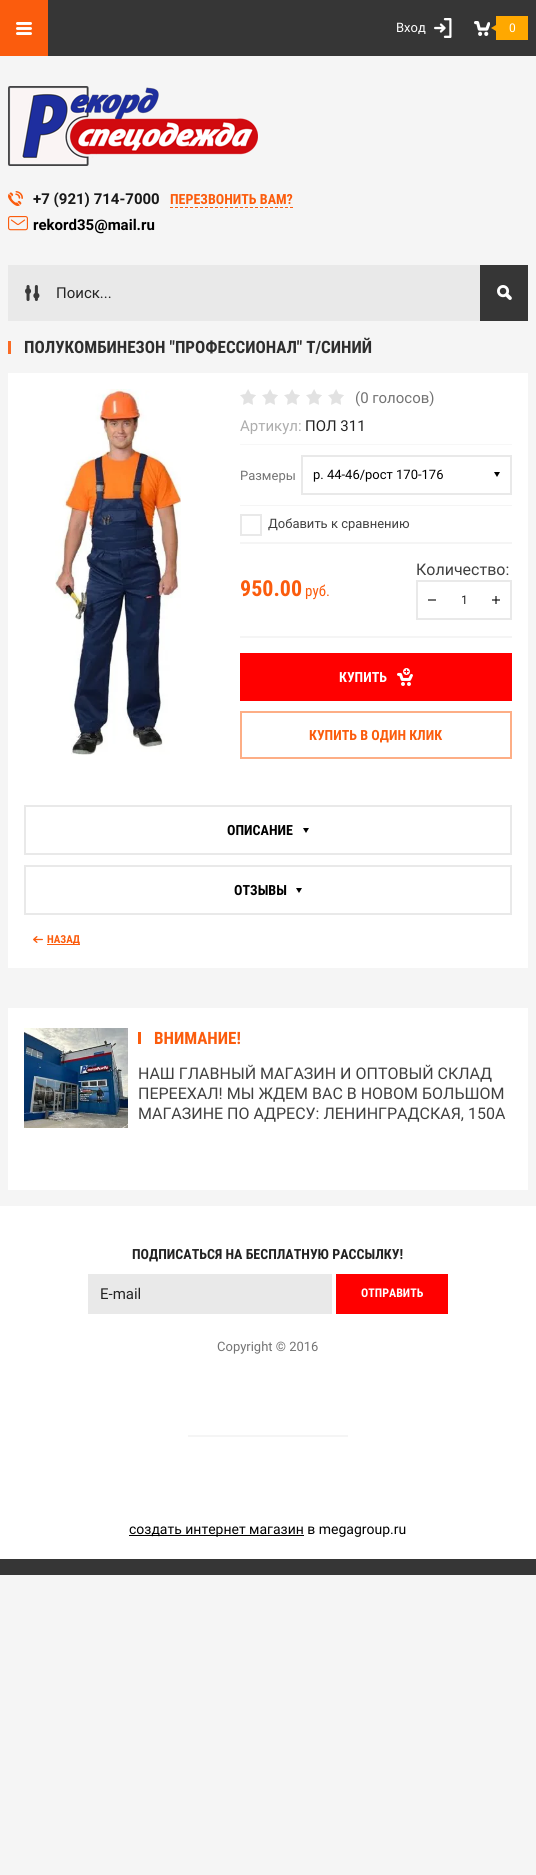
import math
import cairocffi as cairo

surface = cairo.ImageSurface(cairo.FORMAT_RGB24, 536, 1875)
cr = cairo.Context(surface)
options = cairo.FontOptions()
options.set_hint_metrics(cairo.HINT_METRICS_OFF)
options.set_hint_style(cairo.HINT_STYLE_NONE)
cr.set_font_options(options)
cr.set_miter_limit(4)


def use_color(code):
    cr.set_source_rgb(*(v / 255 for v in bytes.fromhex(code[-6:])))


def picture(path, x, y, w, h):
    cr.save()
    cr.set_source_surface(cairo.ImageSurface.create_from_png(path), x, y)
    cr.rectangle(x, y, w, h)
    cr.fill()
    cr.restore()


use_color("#f5f5f5")
cr.paint()
use_color("#363636")
cr.rectangle(48, 0, 488, 56)
cr.fill()
use_color("#fb5c0d")
cr.rectangle(0, 0, 48, 56)
cr.fill()
picture("img1.png", 16, 22, 16, 13)
picture("img2.png", 434, 18, 18, 20)
cr.select_font_face("Roboto")
cr.set_font_size(13)
use_color("#ffffff")
cr.move_to(396, 32)
cr.show_text("Вход")
picture("img3.png", 474, 21, 16, 15)
use_color("#ffa800")
cr.rectangle(496, 16, 32, 24)
cr.fill()
cr.new_path()
cr.move_to(496, 25)
cr.line_to(496, 31)
cr.line_to(491, 28)
cr.close_path()
cr.fill()
cr.set_font_size(12)
use_color("#ffffff")
cr.move_to(509, 32)
cr.show_text("0")
picture("img4.png", 8, 86, 250, 80)
picture("img5.png", 8, 191, 15, 15)
cr.select_font_face("Roboto", cairo.FONT_SLANT_NORMAL, cairo.FONT_WEIGHT_BOLD)
cr.set_font_size(15)
use_color("#191919")
cr.move_to(33, 204)
cr.show_text("+7 (921) 714-7000")
cr.select_font_face("Roboto Condensed", cairo.FONT_SLANT_NORMAL, cairo.FONT_WEIGHT_BOLD)
cr.set_font_size(14)
use_color("#fb5c0d")
cr.move_to(170, 204)
cr.show_text("ПЕРЕЗВОНИТЬ ВАМ?")
cr.new_path()
cr.move_to(170, 207.5)
cr.line_to(293, 207.5)
cr.set_line_width(1)
cr.set_dash([3, 2])
cr.stroke()
picture("img6.png", 8, 216, 20, 15)
cr.select_font_face("Roboto", cairo.FONT_SLANT_NORMAL, cairo.FONT_WEIGHT_BOLD)
cr.set_font_size(15)
use_color("#000000")
cr.move_to(33, 230)
cr.show_text("rekord35@mail.ru")
use_color("#e9e9e9")
cr.rectangle(8, 265, 472, 56)
cr.fill()
picture("img7.png", 25, 285, 15, 16)
cr.select_font_face("Roboto")
use_color("#232323")
cr.move_to(56, 298)
cr.show_text("Поиск...")
use_color("#363636")
cr.rectangle(480, 265, 48, 56)
cr.fill()
picture("img8.png", 497, 285, 15, 15)
use_color("#fa6b24")
cr.rectangle(8, 341, 3, 13)
cr.fill()
cr.select_font_face("Roboto Condensed", cairo.FONT_SLANT_NORMAL, cairo.FONT_WEIGHT_BOLD)
cr.set_font_size(17)
use_color("#2e2e2e")
cr.move_to(24, 353)
cr.show_text("ПОЛУКОМБИНЕЗОН \"ПРОФЕССИОНАЛ\" Т/СИНИЙ")
use_color("#ffffff")
cr.rectangle(8, 373, 520, 595)
cr.fill()
use_color("#737373")
cr.rectangle(495, 596, 2, 8)
cr.fill()
picture("img9.png", 55, 389, 126, 366)
picture("img10.png", 240, 389, 104, 16)
cr.select_font_face("Roboto")
cr.set_font_size(15)
cr.move_to(355, 403)
cr.show_text("(0 голосов)")
use_color("#f7f7f7")
cr.rectangle(240, 444, 272, 1)
cr.fill()
use_color("#adadad")
cr.move_to(240, 431)
cr.show_text("Артикул:")
use_color("#232323")
cr.move_to(305, 431)
cr.show_text("ПОЛ 311")
cr.set_font_size(13)
use_color("#737373")
cr.move_to(240, 480)
cr.show_text("Размеры")
cr.rectangle(302, 456, 209, 38)
use_color("#e9e9e9")
cr.set_line_width(2)
cr.set_dash([])
cr.stroke()
use_color("#000000")
cr.move_to(313, 479)
cr.show_text("р. 44-46/рост 170-176")
cr.new_path()
cr.move_to(494, 472)
cr.line_to(500, 472)
cr.line_to(497, 477)
cr.close_path()
cr.fill()
use_color("#f5f5f5")
cr.rectangle(240, 505, 272, 1)
cr.fill()
cr.rectangle(241, 515, 20, 20)
use_color("#e9e9e9")
cr.stroke()
use_color("#404040")
cr.move_to(268, 528)
cr.show_text("Добавить к сравнению")
use_color("#f5f5f5")
cr.rectangle(240, 542, 272, 2)
cr.fill()
cr.rectangle(240, 636, 272, 2)
cr.fill()
cr.select_font_face("Roboto Condensed", cairo.FONT_SLANT_NORMAL, cairo.FONT_WEIGHT_BOLD)
cr.set_font_size(22)
use_color("#fb5c0d")
cr.move_to(240, 596)
cr.show_text("950.00")
cr.select_font_face("Roboto Condensed")
cr.set_font_size(15)
cr.move_to(305, 596)
cr.show_text("руб.")
cr.select_font_face("Roboto")
cr.set_font_size(16)
use_color("#404040")
cr.move_to(416, 575)
cr.show_text("Количество:")
cr.rectangle(417, 581, 94, 38)
use_color("#e9e9e9")
cr.stroke()
use_color("#737373")
cr.rectangle(428, 599, 8, 2)
cr.fill()
cr.set_font_size(12)
use_color("#232323")
cr.move_to(461, 604)
cr.show_text("1")
use_color("#737373")
cr.rectangle(492, 599, 8, 2)
cr.fill()
use_color("#343434")
cr.rectangle(495, 599, 2, 2)
cr.fill()
use_color("#ff0000")
cr.rectangle(240, 653, 272, 48)
cr.fill()
picture("img11.png", 397, 668, 16, 18)
cr.select_font_face("Roboto Condensed", cairo.FONT_SLANT_NORMAL, cairo.FONT_WEIGHT_BOLD)
cr.set_font_size(14)
use_color("#ffffff")
cr.move_to(339, 682)
cr.show_text("КУПИТЬ")
cr.rectangle(241, 712, 270, 46)
use_color("#fdae86")
cr.stroke()
use_color("#fb5c0d")
cr.move_to(309, 740)
cr.show_text("КУПИТЬ В ОДИН КЛИК")
cr.rectangle(25, 806, 486, 48)
use_color("#e9e9e9")
cr.stroke()
use_color("#000000")
cr.move_to(227, 835)
cr.show_text("ОПИСАНИЕ")
cr.new_path()
cr.move_to(303, 828)
cr.line_to(309, 828)
cr.line_to(306, 833)
cr.close_path()
cr.fill()
cr.rectangle(25, 866, 486, 48)
use_color("#e9e9e9")
cr.stroke()
use_color("#000000")
cr.move_to(234, 895)
cr.show_text("ОТЗЫВЫ")
cr.new_path()
cr.move_to(296, 888)
cr.line_to(302, 888)
cr.line_to(299, 893)
cr.close_path()
cr.fill()
picture("img12.png", 33, 936, 10, 7)
use_color("#fb5c0d")
cr.rectangle(47, 944, 33, 1)
cr.fill()
cr.set_font_size(11)
cr.move_to(47, 943)
cr.show_text("НАЗАД")
use_color("#ffffff")
cr.rectangle(8, 1008, 520, 182)
cr.fill()
picture("img13.png", 24, 1028, 104, 100)
use_color("#fb5c0d")
cr.rectangle(138, 1032, 3, 12)
cr.fill()
cr.set_font_size(17)
cr.move_to(154, 1044)
cr.show_text("ВНИМАНИЕ!")
cr.select_font_face("Roboto")
cr.set_font_size(16)
use_color("#404040")
cr.move_to(138, 1079)
cr.show_text("НАШ ГЛАВНЫЙ МАГАЗИН И ОПТОВЫЙ СКЛАД")
cr.move_to(138, 1099)
cr.show_text("ПЕРЕЕХАЛ! МЫ ЖДЕМ ВАС В НОВОМ БОЛЬШОМ")
cr.move_to(138, 1119)
cr.show_text("МАГАЗИНЕ ПО АДРЕСУ: ЛЕНИНГРАДСКАЯ, 150А")
use_color("#ffffff")
cr.rectangle(0, 1206, 536, 353)
cr.fill()
use_color("#363636")
cr.rectangle(0, 1559, 536, 16)
cr.fill()
cr.select_font_face("Roboto Condensed", cairo.FONT_SLANT_NORMAL, cairo.FONT_WEIGHT_BOLD)
cr.set_font_size(14)
use_color("#232323")
cr.move_to(132, 1259)
cr.show_text("ПОДПИСАТЬСЯ НА БЕСПЛАТНУЮ РАССЫЛКУ!")
use_color("#e9e9e9")
cr.rectangle(88, 1274, 244, 40)
cr.fill()
cr.select_font_face("Roboto")
cr.set_font_size(15)
use_color("#232323")
cr.move_to(100, 1299)
cr.show_text("E-mail")
use_color("#ff0000")
cr.rectangle(336, 1274, 112, 40)
cr.fill()
cr.select_font_face("Roboto Condensed", cairo.FONT_SLANT_NORMAL, cairo.FONT_WEIGHT_BOLD)
cr.set_font_size(12)
use_color("#ffffff")
cr.move_to(361, 1297)
cr.show_text("ОТПРАВИТЬ")
cr.select_font_face("Roboto")
cr.set_font_size(13)
use_color("#737373")
cr.move_to(217, 1351)
cr.show_text("Copyright © 2016")
use_color("#f5f5f5")
cr.rectangle(188, 1435, 160, 2)
cr.fill()
use_color("#000000")
cr.rectangle(129, 1535, 175, 1)
cr.fill()
cr.set_font_size(14)
cr.move_to(129, 1534)
cr.show_text("создать интернет магазин в megagroup.ru")
surface.write_to_png("result.png")
